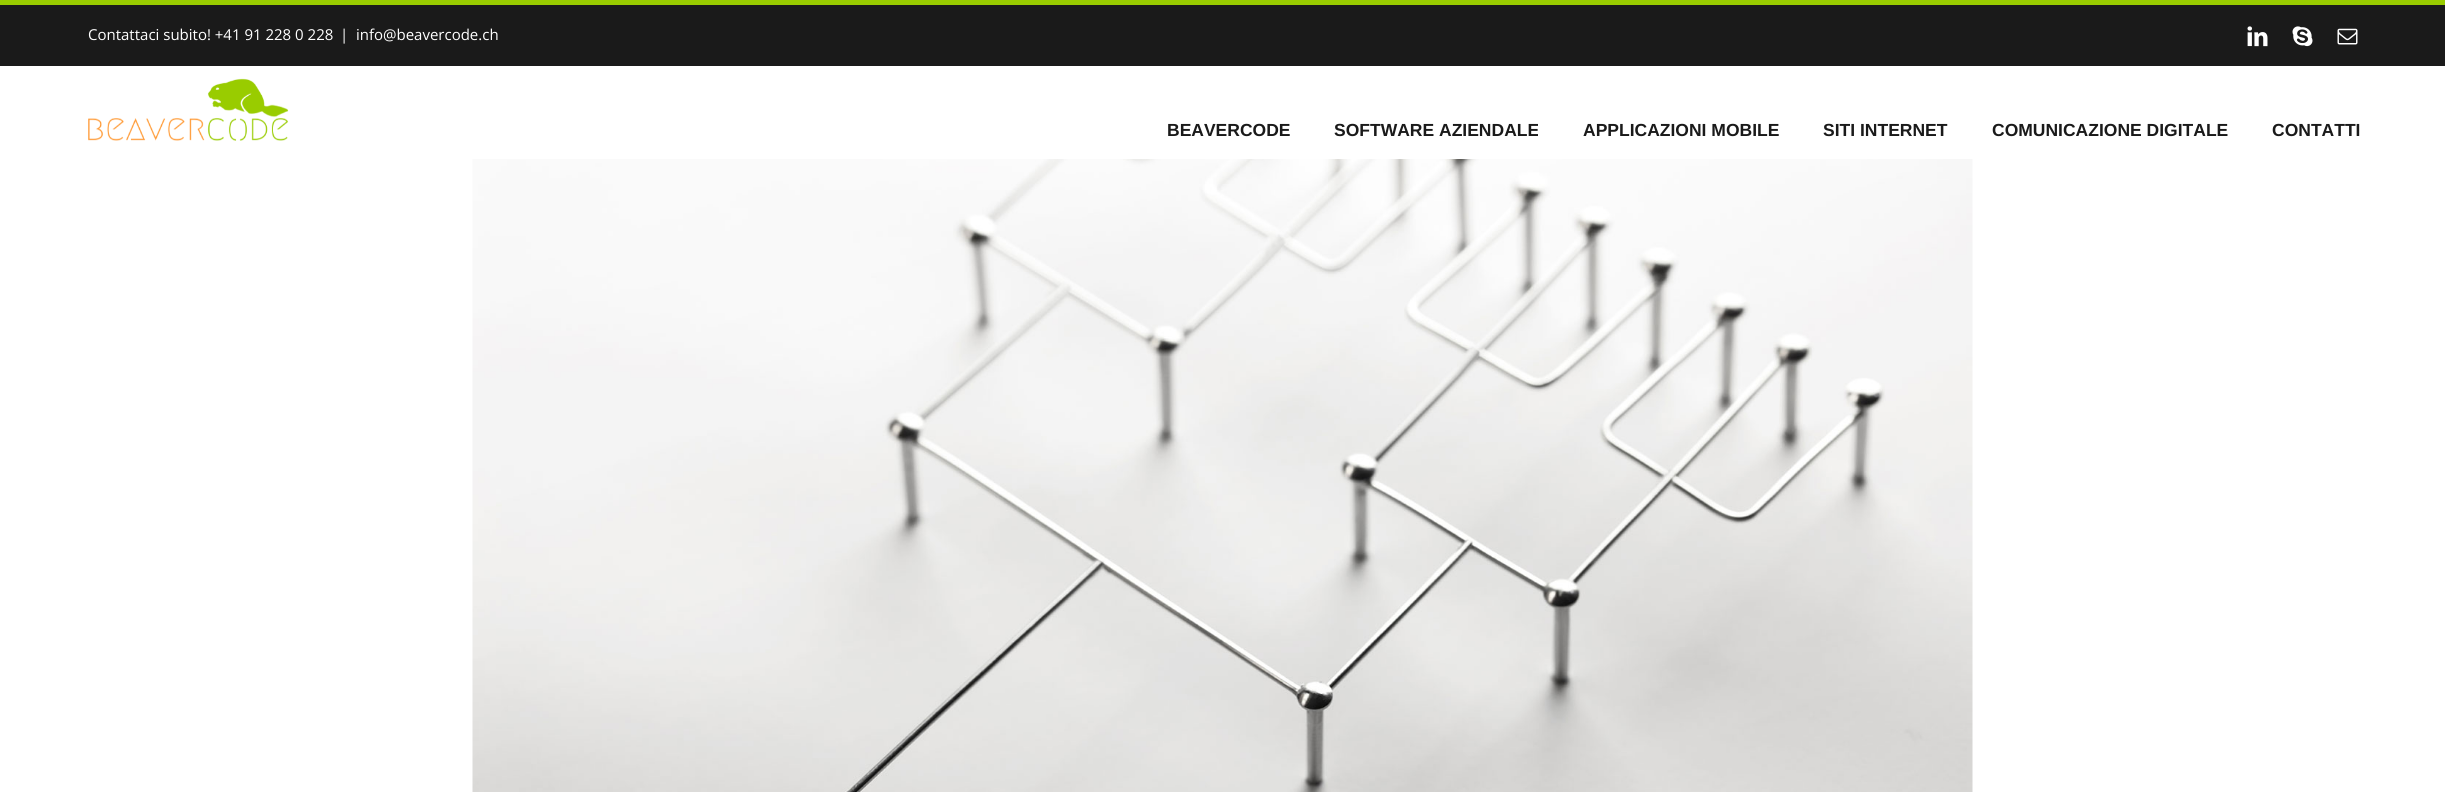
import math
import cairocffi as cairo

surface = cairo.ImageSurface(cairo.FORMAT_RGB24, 2445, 792)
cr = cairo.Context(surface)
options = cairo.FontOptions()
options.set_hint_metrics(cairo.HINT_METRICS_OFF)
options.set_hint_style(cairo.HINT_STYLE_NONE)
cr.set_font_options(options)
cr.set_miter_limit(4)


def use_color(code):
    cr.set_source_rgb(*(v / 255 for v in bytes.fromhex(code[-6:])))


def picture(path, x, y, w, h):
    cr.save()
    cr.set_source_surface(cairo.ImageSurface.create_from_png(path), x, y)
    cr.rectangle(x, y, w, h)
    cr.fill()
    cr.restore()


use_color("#ffffff")
cr.paint()
use_color("#1a1a1a")
cr.rectangle(0, 5, 2445, 61)
cr.fill()
use_color("#99cc00")
cr.rectangle(0, 0, 2445, 5)
cr.fill()
cr.select_font_face("Open Sans")
cr.set_font_size(15)
use_color("#ffffff")
cr.move_to(88, 40)
cr.show_text("Contattaci subito! +41 91 228 0 228")
cr.move_to(340, 40)
cr.show_text("|")
cr.move_to(356, 40)
cr.show_text("info@beavercode.ch")
picture("img1.png", 2247, 26, 21, 21)
picture("img2.png", 2292, 26, 21, 21)
picture("img3.png", 2337, 28, 21, 17)
picture("img4.png", 88, 78, 201, 63)
cr.select_font_face("Liberation Sans", cairo.FONT_SLANT_NORMAL, cairo.FONT_WEIGHT_BOLD)
cr.set_font_size(17.5)
use_color("#1a1a1a")
cr.move_to(1167, 136)
cr.show_text("BEAVERCODE")
cr.move_to(1334, 136)
cr.show_text("SOFTWARE AZIENDALE")
cr.move_to(1583, 136)
cr.show_text("APPLICAZIONI MOBILE")
cr.move_to(1823, 136)
cr.show_text("SITI INTERNET")
cr.move_to(1992, 136)
cr.show_text("COMUNICAZIONE DIGITALE")
cr.move_to(2272, 136)
cr.show_text("CONTATTI")
picture("img5.png", 472, 159, 1501, 633)
surface.write_to_png("result.png")
